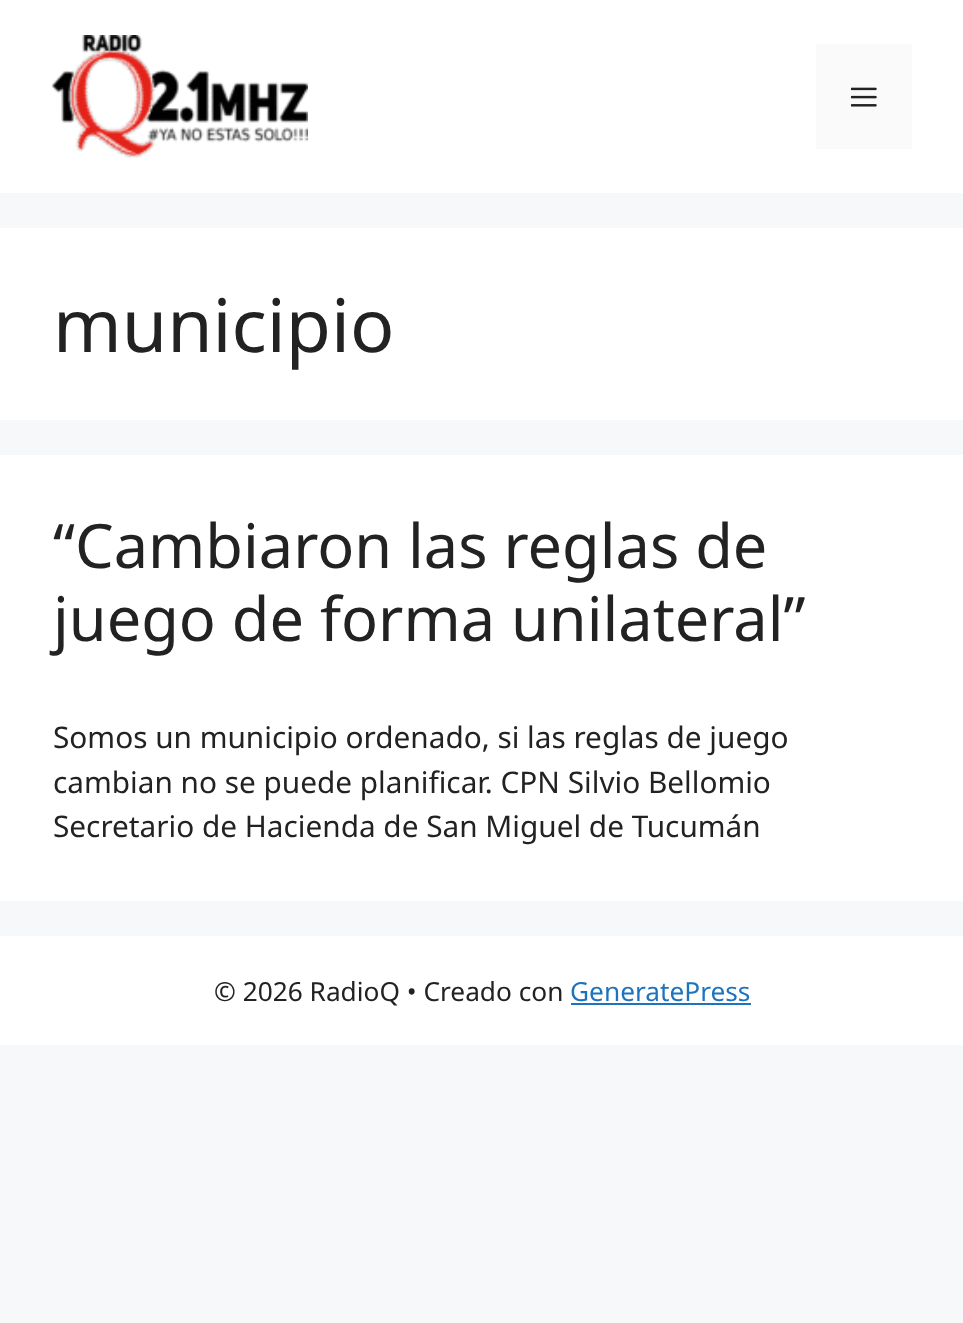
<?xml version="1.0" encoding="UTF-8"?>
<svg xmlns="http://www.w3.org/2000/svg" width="963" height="1323">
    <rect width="100%" height="100%" fill="#F7F8F9"/>
    <rect x="0" y="0" width="963" height="193" fill="#FFFFFF"/>
    <image x="52" y="35" width="256" height="123" href="img_01.png"/>
    <rect x="816" y="44" width="96" height="105" fill="#FAFAFA"/>
    <image x="851" y="87" width="26" height="20" href="img_02.png"/>
    <rect x="0" y="228" width="963" height="192" fill="#FFFFFF"/>
    <text x="53" y="352" font-family="Noto Sans" font-size="73.5" fill="#222222">municipio</text>
    <rect x="0" y="455" width="963" height="446" fill="#FFFFFF"/>
    <text font-family="Noto Sans" font-size="61.25" fill="#222222">
        <tspan x="53" y="568">“Cambiaron las reglas de</tspan>
        <tspan x="53" y="641">juego de forma unilateral”</tspan>
    </text>
    <text font-family="Noto Sans" font-size="29.75" fill="#222222">
        <tspan x="53" y="748">Somos un municipio ordenado, si las reglas de juego</tspan>
        <tspan x="53" y="793">cambian no se puede planificar. CPN Silvio Bellomio</tspan>
        <tspan x="53" y="837">Secretario de Hacienda de San Miguel de Tucumán</tspan>
    </text>
    <rect x="0" y="936" width="963" height="109" fill="#FFFFFF"/>
    <text x="214" y="1001" font-family="Noto Sans" font-size="26.25" fill="#222222">© 2026 RadioQ • Creado con</text>
    <text x="570" y="1001" font-family="Noto Sans" font-size="26.25" fill="#1E73BE">GeneratePress</text>
    <rect x="571" y="1003" width="180" height="2" fill="#1E73BE"/>
</svg>
